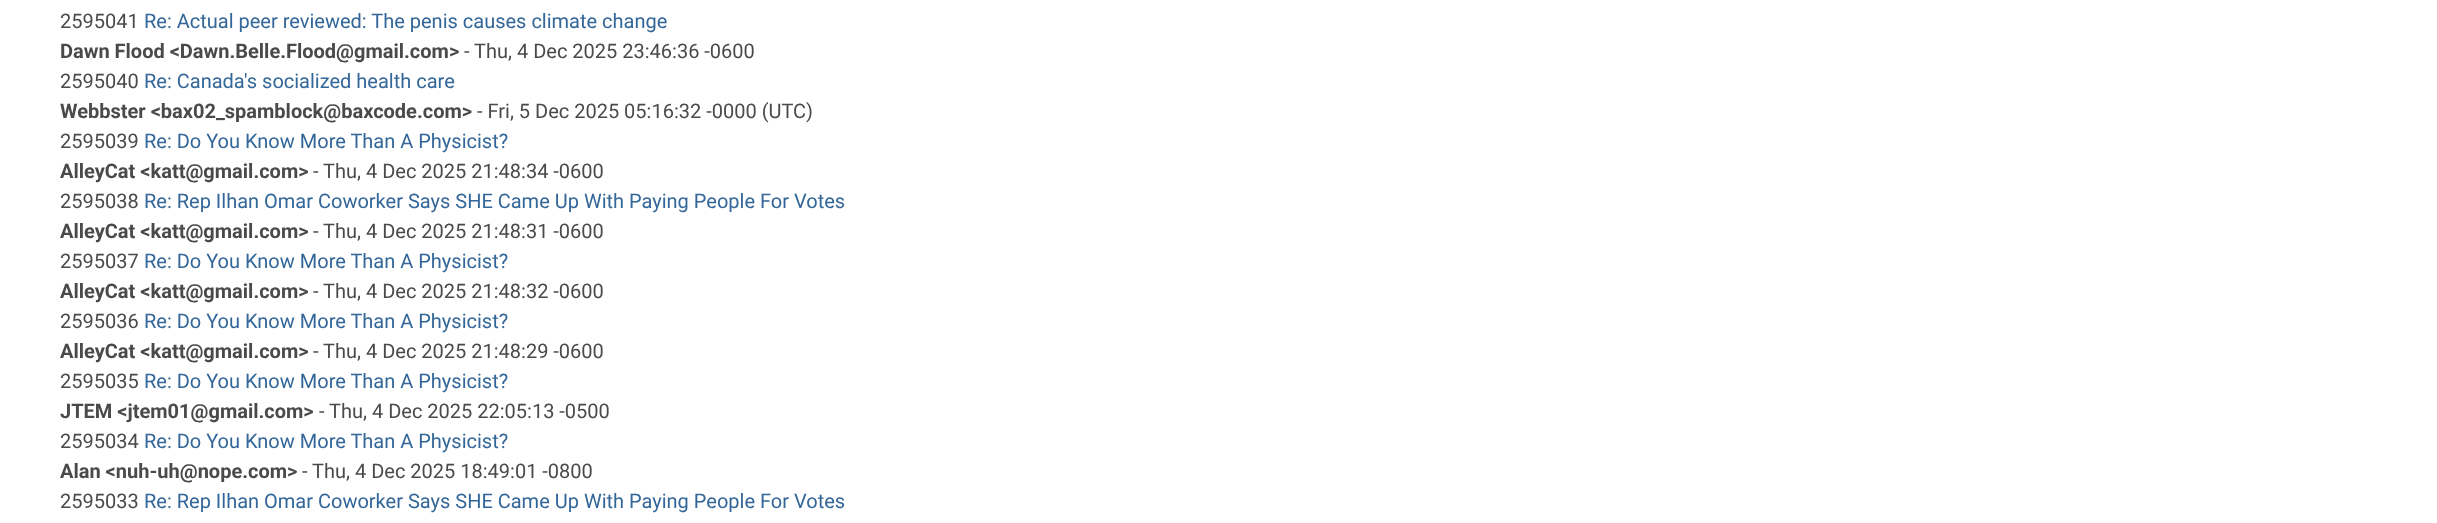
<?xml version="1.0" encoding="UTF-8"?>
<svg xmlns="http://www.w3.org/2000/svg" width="2437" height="523">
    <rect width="100%" height="100%" fill="#FFFFFF"/>
    <text x="60" y="28" font-family="Roboto" font-size="20" fill="#4A4A4A">2595041</text>
    <text x="144" y="28" font-family="Roboto" font-size="20" fill="#336699">Re: Actual peer reviewed: The penis causes climate change</text>
    <text x="60" y="58" font-family="Roboto" font-size="20" font-weight="700" fill="#4A4A4A">Dawn Flood &lt;Dawn.Belle.Flood@gmail.com&gt;</text>
    <text x="464" y="58" font-family="Roboto" font-size="20" fill="#4A4A4A">- Thu, 4 Dec 2025 23:46:36 -0600</text>
    <text x="60" y="88" font-family="Roboto" font-size="20" fill="#4A4A4A">2595040</text>
    <text x="144" y="88" font-family="Roboto" font-size="20" fill="#336699">Re: Canada's socialized health care</text>
    <text x="60" y="118" font-family="Roboto" font-size="20" font-weight="700" fill="#4A4A4A">Webbster &lt;bax02_spamblock@baxcode.com&gt;</text>
    <text x="477" y="118" font-family="Roboto" font-size="20" fill="#4A4A4A">- Fri, 5 Dec 2025 05:16:32 -0000 (UTC)</text>
    <text x="60" y="148" font-family="Roboto" font-size="20" fill="#4A4A4A">2595039</text>
    <text x="144" y="148" font-family="Roboto" font-size="20" fill="#336699">Re: Do You Know More Than A Physicist?</text>
    <text x="60" y="178" font-family="Roboto" font-size="20" font-weight="700" fill="#4A4A4A">AlleyCat &lt;katt@gmail.com&gt;</text>
    <text x="313" y="178" font-family="Roboto" font-size="20" fill="#4A4A4A">- Thu, 4 Dec 2025 21:48:34 -0600</text>
    <text x="60" y="208" font-family="Roboto" font-size="20" fill="#4A4A4A">2595038</text>
    <text x="144" y="208" font-family="Roboto" font-size="20" fill="#336699">Re: Rep Ilhan Omar Coworker Says SHE Came Up With Paying People For Votes</text>
    <text x="60" y="238" font-family="Roboto" font-size="20" font-weight="700" fill="#4A4A4A">AlleyCat &lt;katt@gmail.com&gt;</text>
    <text x="313" y="238" font-family="Roboto" font-size="20" fill="#4A4A4A">- Thu, 4 Dec 2025 21:48:31 -0600</text>
    <text x="60" y="268" font-family="Roboto" font-size="20" fill="#4A4A4A">2595037</text>
    <text x="144" y="268" font-family="Roboto" font-size="20" fill="#336699">Re: Do You Know More Than A Physicist?</text>
    <text x="60" y="298" font-family="Roboto" font-size="20" font-weight="700" fill="#4A4A4A">AlleyCat &lt;katt@gmail.com&gt;</text>
    <text x="313" y="298" font-family="Roboto" font-size="20" fill="#4A4A4A">- Thu, 4 Dec 2025 21:48:32 -0600</text>
    <text x="60" y="328" font-family="Roboto" font-size="20" fill="#4A4A4A">2595036</text>
    <text x="144" y="328" font-family="Roboto" font-size="20" fill="#336699">Re: Do You Know More Than A Physicist?</text>
    <text x="60" y="358" font-family="Roboto" font-size="20" font-weight="700" fill="#4A4A4A">AlleyCat &lt;katt@gmail.com&gt;</text>
    <text x="313" y="358" font-family="Roboto" font-size="20" fill="#4A4A4A">- Thu, 4 Dec 2025 21:48:29 -0600</text>
    <text x="60" y="388" font-family="Roboto" font-size="20" fill="#4A4A4A">2595035</text>
    <text x="144" y="388" font-family="Roboto" font-size="20" fill="#336699">Re: Do You Know More Than A Physicist?</text>
    <text x="60" y="418" font-family="Roboto" font-size="20" font-weight="700" fill="#4A4A4A">JTEM &lt;jtem01@gmail.com&gt;</text>
    <text x="319" y="418" font-family="Roboto" font-size="20" fill="#4A4A4A">- Thu, 4 Dec 2025 22:05:13 -0500</text>
    <text x="60" y="448" font-family="Roboto" font-size="20" fill="#4A4A4A">2595034</text>
    <text x="144" y="448" font-family="Roboto" font-size="20" fill="#336699">Re: Do You Know More Than A Physicist?</text>
    <text x="60" y="478" font-family="Roboto" font-size="20" font-weight="700" fill="#4A4A4A">Alan &lt;nuh-uh@nope.com&gt;</text>
    <text x="302" y="478" font-family="Roboto" font-size="20" fill="#4A4A4A">- Thu, 4 Dec 2025 18:49:01 -0800</text>
    <text x="60" y="508" font-family="Roboto" font-size="20" fill="#4A4A4A">2595033</text>
    <text x="144" y="508" font-family="Roboto" font-size="20" fill="#336699">Re: Rep Ilhan Omar Coworker Says SHE Came Up With Paying People For Votes</text>
</svg>
